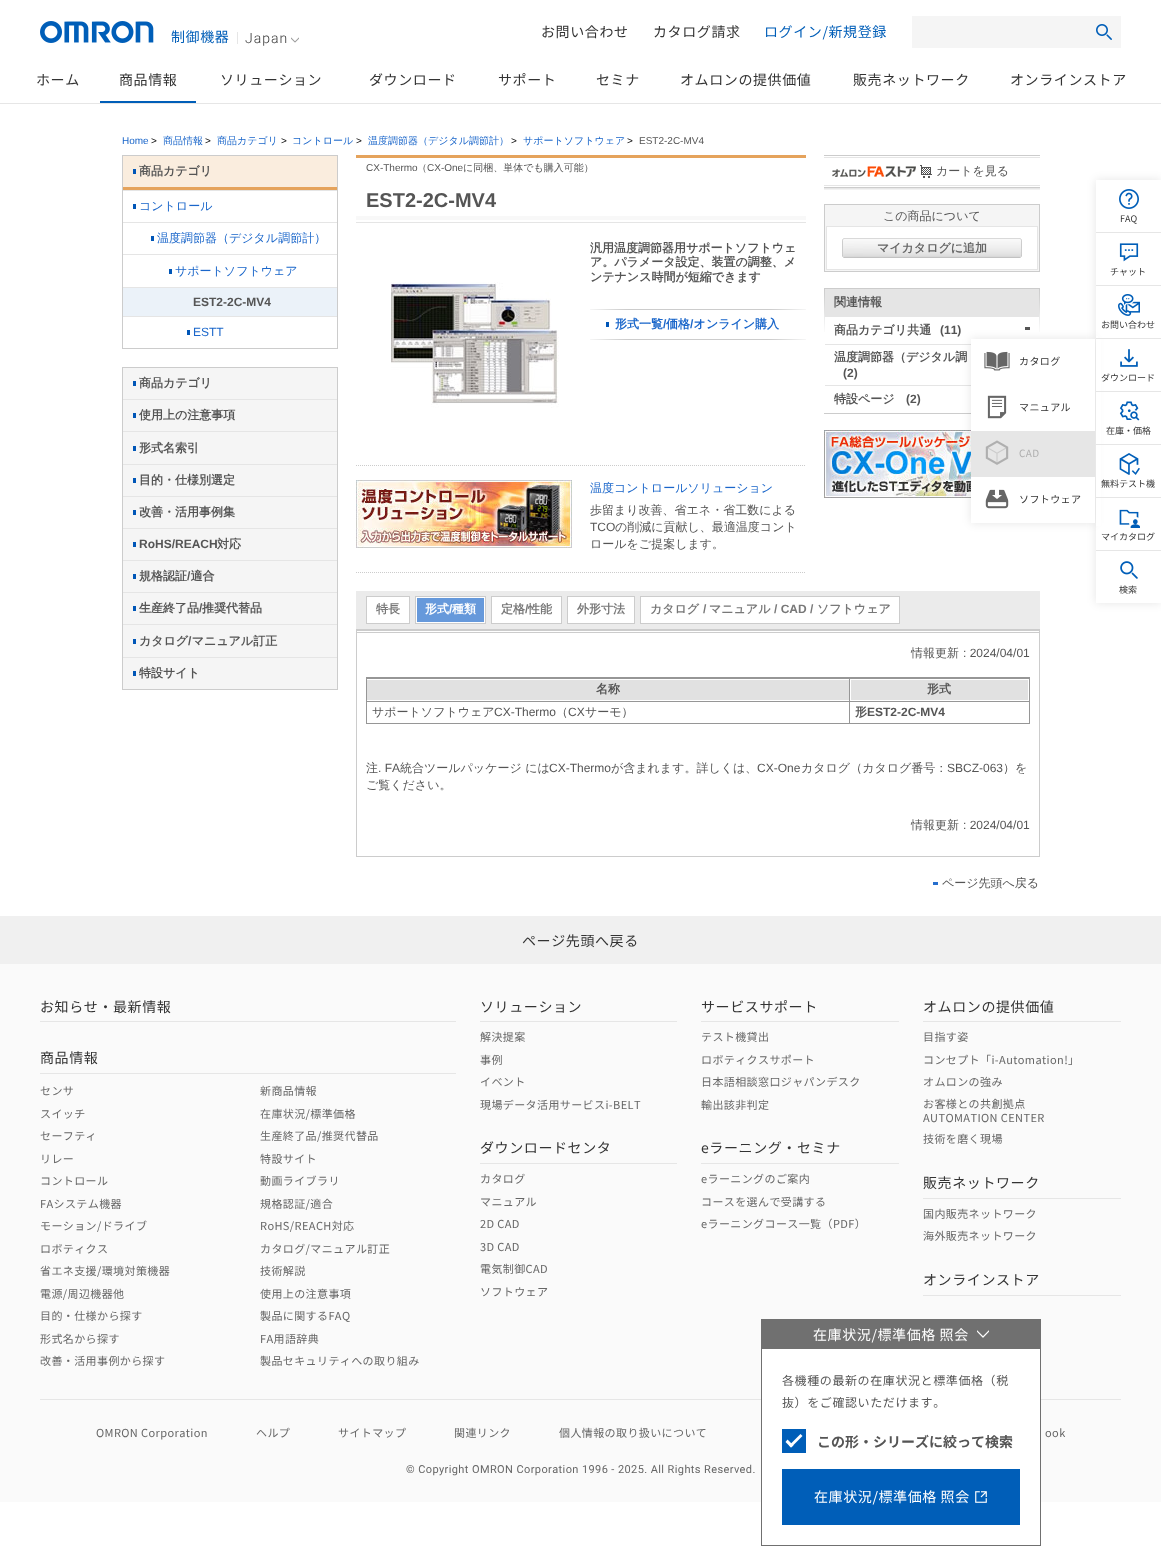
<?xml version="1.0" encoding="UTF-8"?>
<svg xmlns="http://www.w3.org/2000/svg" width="1161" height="1546">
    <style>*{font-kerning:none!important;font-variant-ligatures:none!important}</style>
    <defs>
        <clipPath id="clip1"><path d="M 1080 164 H 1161 V 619 H 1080 Z M 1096 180 H 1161 V 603 H 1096 Z" clip-rule="evenodd"/></clipPath>
        <filter id="blur1" x="-50%" y="-200%" width="200%" height="500%"><feGaussianBlur stdDeviation="5"/></filter>
        <clipPath id="clip2"><rect x="977" y="1328" width="12" height="12"/></clipPath>
    </defs>
    <rect width="100%" height="100%" fill="#FFFFFF"/>
    <rect x="0" y="103" width="1161" height="1" fill="#E6E6E6"/>
    <text x="541" y="37" font-family="Noto Sans JP" font-size="14" letter-spacing="0.6" fill="#333333">お問い合わせ</text>
    <text x="653" y="37" font-family="Noto Sans JP" font-size="14" letter-spacing="0.6" fill="#333333">カタログ請求</text>
    <text x="764" y="37" font-family="Noto Sans JP" font-size="14" letter-spacing="0.6" fill="#005EB8">ログイン/新規登録</text>
    <rect x="912" y="16" width="209" height="32" fill="#F5F5F5"/>
    <image x="1096" y="24" width="16" height="16" href="img_01.png"/>
    <text x="36" y="85" font-family="Noto Sans JP" font-size="14" letter-spacing="0.6" fill="#333333">ホーム</text>
    <text x="119" y="85" font-family="Noto Sans JP" font-size="14" letter-spacing="0.6" fill="#333333">商品情報</text>
    <rect x="100" y="101" width="96" height="2" fill="#005EB8"/>
    <text x="220" y="85" font-family="Noto Sans JP" font-size="14" letter-spacing="0.6" fill="#333333">ソリューション</text>
    <text x="369" y="85" font-family="Noto Sans JP" font-size="14" letter-spacing="0.6" fill="#333333">ダウンロード</text>
    <text x="498" y="85" font-family="Noto Sans JP" font-size="14" letter-spacing="0.6" fill="#333333">サポート</text>
    <text x="596" y="85" font-family="Noto Sans JP" font-size="14" letter-spacing="0.6" fill="#333333">セミナ</text>
    <text x="680" y="85" font-family="Noto Sans JP" font-size="14" letter-spacing="0.6" fill="#333333">オムロンの提供価値</text>
    <text x="853" y="85" font-family="Noto Sans JP" font-size="14" letter-spacing="0.6" fill="#333333">販売ネットワーク</text>
    <text x="1010" y="85" font-family="Noto Sans JP" font-size="14" letter-spacing="0.6" fill="#333333">オンラインストア</text>
    <image x="40" y="21" width="114" height="22" href="img_02.png"/>
    <text x="171" y="42" font-family="Noto Sans JP" font-size="14" letter-spacing="0.6" fill="#005EB8">制御機器</text>
    <rect x="237" y="32" width="1" height="12" fill="#E6E6E6"/>
    <text x="245" y="43" font-family="Roboto" font-size="14" font-weight="300" letter-spacing="1" fill="#333333">Japan</text>
    <image x="291" y="37" width="8" height="6" href="img_03.png"/>
    <text x="122" y="144" font-family="Liberation Sans" font-size="10" fill="#1A66CA">Home</text>
    <text x="151" y="144" font-family="Liberation Sans" font-size="10" fill="#000000">&gt;</text>
    <text x="163" y="144" font-family="WenQuanYi Zen Hei" font-size="10" font-weight="500" fill="#1A66CA">商品情報</text>
    <text x="205" y="144" font-family="Liberation Sans" font-size="10" fill="#000000">&gt;</text>
    <text x="217" y="144" font-family="WenQuanYi Zen Hei" font-size="10" font-weight="500" fill="#1A66CA">商品カテゴリ</text>
    <text x="281" y="144" font-family="Liberation Sans" font-size="10" fill="#000000">&gt;</text>
    <text x="292" y="144" font-family="WenQuanYi Zen Hei" font-size="10" font-weight="500" fill="#1A66CA">コントロール</text>
    <text x="356" y="144" font-family="Liberation Sans" font-size="10" fill="#000000">&gt;</text>
    <text x="368" y="144" font-family="WenQuanYi Zen Hei" font-size="10" font-weight="500" fill="#1A66CA">温度調節器（デジタル調節計）</text>
    <text x="511" y="144" font-family="Liberation Sans" font-size="10" fill="#000000">&gt;</text>
    <text x="523" y="144" font-family="WenQuanYi Zen Hei" font-size="10" font-weight="500" fill="#1A66CA">サポートソフトウェア</text>
    <text x="627" y="144" font-family="Liberation Sans" font-size="10" fill="#000000">&gt;</text>
    <text x="639" y="144" font-family="Liberation Sans" font-size="10" fill="#555555">EST2-2C-MV4</text>
    <rect x="122.5" y="155.5" width="215" height="193" fill="none" stroke="#CCCCCC"/>
    <rect x="123" y="156" width="214" height="31" fill="#FAEDDE"/>
    <rect x="123" y="187" width="214" height="3" fill="#E5A35C"/>
    <rect x="133" y="169" width="3" height="5" fill="#0056B7"/>
    <text x="139" y="175" font-family="WenQuanYi Zen Hei" font-size="12" font-weight="700" fill="#555555">商品カテゴリ</text>
    <rect x="123" y="190" width="214" height="1" fill="#E5E5E5"/>
    <rect x="133" y="204" width="3" height="5" fill="#0056B7"/>
    <text x="139" y="210" font-family="WenQuanYi Zen Hei" font-size="12" font-weight="500" fill="#1A66CA">コントロール</text>
    <rect x="123" y="222" width="214" height="1" fill="#E5E5E5"/>
    <rect x="151" y="236" width="3" height="5" fill="#0056B7"/>
    <text x="157" y="242" font-family="WenQuanYi Zen Hei" font-size="12" font-weight="500" fill="#1A66CA">温度調節器（デジタル調節計）</text>
    <rect x="123" y="254" width="214" height="1" fill="#E5E5E5"/>
    <rect x="169" y="269" width="3" height="5" fill="#0056B7"/>
    <text x="175" y="275" font-family="WenQuanYi Zen Hei" font-size="12" font-weight="500" fill="#1A66CA">サポートソフトウェア</text>
    <rect x="123" y="288" width="214" height="28" fill="#EBF2F9"/>
    <rect x="123" y="287" width="214" height="1" fill="#E5E5E5"/>
    <text x="193" y="306" font-family="Liberation Sans" font-size="12" font-weight="700" fill="#555555">EST2-2C-MV4</text>
    <rect x="123" y="316" width="214" height="1" fill="#E5E5E5"/>
    <rect x="187" y="330" width="3" height="5" fill="#0056B7"/>
    <text x="193" y="336" font-family="Liberation Sans" font-size="12" fill="#1A66CA">ESTT</text>
    <rect x="122.5" y="367.5" width="215" height="322" fill="#F5F5F5" stroke="#CCCCCC"/>
    <rect x="133" y="381" width="3" height="5" fill="#0056B7"/>
    <text x="139" y="387" font-family="WenQuanYi Zen Hei" font-size="12" font-weight="700" fill="#555555">商品カテゴリ</text>
    <rect x="123" y="399" width="214" height="1" fill="#E5E5E5"/>
    <rect x="133" y="413" width="3" height="5" fill="#0056B7"/>
    <text x="139" y="419" font-family="WenQuanYi Zen Hei" font-size="12" font-weight="700" fill="#555555">使用上の注意事項</text>
    <rect x="123" y="431" width="214" height="1" fill="#E5E5E5"/>
    <rect x="133" y="446" width="3" height="5" fill="#0056B7"/>
    <text x="139" y="452" font-family="WenQuanYi Zen Hei" font-size="12" font-weight="700" fill="#555555">形式名索引</text>
    <rect x="123" y="464" width="214" height="1" fill="#E5E5E5"/>
    <rect x="133" y="478" width="3" height="5" fill="#0056B7"/>
    <text x="139" y="484" font-family="WenQuanYi Zen Hei" font-size="12" font-weight="700" fill="#555555">目的・仕様別選定</text>
    <rect x="123" y="496" width="214" height="1" fill="#E5E5E5"/>
    <rect x="133" y="510" width="3" height="5" fill="#0056B7"/>
    <text x="139" y="516" font-family="WenQuanYi Zen Hei" font-size="12" font-weight="700" fill="#555555">改善・活用事例集</text>
    <rect x="123" y="528" width="214" height="1" fill="#E5E5E5"/>
    <rect x="133" y="542" width="3" height="5" fill="#0056B7"/>
    <text x="139" y="548" font-family="Liberation Sans" font-size="12" font-weight="700" fill="#555555">RoHS/REACH</text>
    <text x="217" y="548" font-family="WenQuanYi Zen Hei" font-size="12" font-weight="700" fill="#555555">対応</text>
    <rect x="123" y="560" width="214" height="1" fill="#E5E5E5"/>
    <text x="139" y="580" font-family="WenQuanYi Zen Hei" font-size="12" font-weight="700" fill="#555555">規格認証 適合</text>
    <rect x="133" y="574" width="3" height="5" fill="#0056B7"/>
    <text x="187" y="580" font-family="Liberation Sans" font-size="12" font-weight="700" fill="#555555">/</text>
    <rect x="123" y="592" width="214" height="1" fill="#E5E5E5"/>
    <rect x="133" y="606" width="3" height="5" fill="#0056B7"/>
    <text x="139" y="612" font-family="WenQuanYi Zen Hei" font-size="12" font-weight="700" fill="#555555">生産終了品</text>
    <text x="199" y="612" font-family="Liberation Sans" font-size="12" font-weight="700" fill="#555555">/</text>
    <text x="202" y="612" font-family="WenQuanYi Zen Hei" font-size="12" font-weight="700" fill="#555555">推奨代替品</text>
    <rect x="123" y="624" width="214" height="1" fill="#E5E5E5"/>
    <text x="139" y="645" font-family="WenQuanYi Zen Hei" font-size="12" font-weight="700" fill="#555555">カタログ マニュアル訂正</text>
    <rect x="133" y="639" width="3" height="5" fill="#0056B7"/>
    <text x="188" y="645" font-family="Liberation Sans" font-size="12" font-weight="700" fill="#555555">/</text>
    <rect x="123" y="657" width="214" height="1" fill="#E5E5E5"/>
    <rect x="133" y="671" width="3" height="5" fill="#0056B7"/>
    <text x="139" y="677" font-family="WenQuanYi Zen Hei" font-size="12" font-weight="700" fill="#555555">特設サイト</text>
    <rect x="356" y="216" width="450" height="4" fill="#F8F8F8"/>
    <rect x="356" y="155" width="450" height="3" fill="#E5A35C"/>
    <rect x="356" y="222" width="450" height="1" fill="#E5E5E5"/>
    <text x="366" y="171" font-family="Liberation Sans" font-size="10" fill="#555555">CX-Thermo</text>
    <text x="417" y="171" font-family="WenQuanYi Zen Hei" font-size="10" font-weight="500" fill="#555555">（</text>
    <text x="427" y="171" font-family="Liberation Sans" font-size="10" fill="#555555">CX-One</text>
    <text x="463" y="171" font-family="WenQuanYi Zen Hei" font-size="10" font-weight="500" fill="#555555">に同梱、単体でも購入可能）</text>
    <text x="366" y="207" font-family="Liberation Sans" font-size="20" font-weight="700" fill="#555555">EST2-2C-MV4</text>
    <image x="391" y="282" width="168" height="126" href="img_04.png"/>
    <text font-family="WenQuanYi Zen Hei" font-size="12" font-weight="700" fill="#555555">
        <tspan x="590" y="252">汎用温度調節器用サポートソフトウェ</tspan>
        <tspan x="590" y="266">ア。パラメータ設定、装置の調整、メ</tspan>
        <tspan x="590" y="281">ンテナンス時間が短縮できます</tspan>
    </text>
    <image x="590" y="309" width="216" height="1" href="img_05.png"/>
    <image x="590" y="339" width="216" height="1" href="img_05.png"/>
    <text x="615" y="328" font-family="WenQuanYi Zen Hei" font-size="12" font-weight="700" fill="#1A66CA">形式一覧</text>
    <text x="663" y="328" font-family="Liberation Sans" font-size="12" font-weight="700" fill="#1A66CA">/</text>
    <text x="666" y="328" font-family="WenQuanYi Zen Hei" font-size="12" font-weight="700" fill="#1A66CA">価格 オンライン購入</text>
    <rect x="606" y="322" width="3" height="5" fill="#0056B7"/>
    <text x="690" y="328" font-family="Liberation Sans" font-size="12" font-weight="700" fill="#1A66CA">/</text>
    <image x="356" y="572" width="449" height="1" href="img_06.png"/>
    <image x="356" y="465" width="449" height="1" href="img_06.png"/>
    <image x="356" y="480" width="216" height="68" href="img_07.png"/>
    <text x="590" y="492" font-family="WenQuanYi Zen Hei" font-size="12" font-weight="500" fill="#1A66CA">温度コントロールソリューション</text>
    <text x="590" y="514" font-family="WenQuanYi Zen Hei" font-size="12" font-weight="500" fill="#555555">歩留まり改善、省エネ・省工数による</text>
    <text x="590" y="531" font-family="Liberation Sans" font-size="12" fill="#555555">TCO</text>
    <text x="615" y="531" font-family="WenQuanYi Zen Hei" font-size="12" font-weight="500" fill="#555555">の削減に貢献し、最適温度コント</text>
    <text x="590" y="548" font-family="WenQuanYi Zen Hei" font-size="12" font-weight="500" fill="#555555">ロールをご提案します。</text>
    <image x="824" y="188" width="216" height="2" href="img_08.png"/>
    <rect x="824" y="155" width="216" height="1" fill="#CCCCCC"/>
    <rect x="824" y="187" width="216" height="1" fill="#CCCCCC"/>
    <rect x="824" y="157" width="216" height="1" fill="#E5E5E5"/>
    <rect x="824" y="185" width="216" height="1" fill="#E5E5E5"/>
    <image x="832" y="165" width="100" height="13" href="img_09.png"/>
    <text x="936" y="175" font-family="WenQuanYi Zen Hei" font-size="12" font-weight="500" fill="#555555">カートを見る</text>
    <rect x="824.5" y="204.5" width="215" height="67" fill="#F5F5F5" stroke="#CCCCCC"/>
    <text x="883" y="220" font-family="WenQuanYi Zen Hei" font-size="12" font-weight="500" fill="#555555">この商品について</text>
    <rect x="826.5" y="226.5" width="211" height="43" fill="#FFFFFF" stroke="#E5E5E5"/>
    <image x="842" y="238" width="180" height="20" href="img_10.png"/>
    <text x="877" y="252" font-family="WenQuanYi Zen Hei" font-size="12" font-weight="700" fill="#666666">マイカタログに追加</text>
    <image x="824" y="289" width="216" height="43" href="img_11.png"/>
    <rect x="824" y="288" width="216" height="1" fill="#CCCCCC"/>
    <rect x="824" y="413" width="147" height="1" fill="#CCCCCC"/>
    <rect x="825" y="289" width="214" height="28" fill="#E5E5E5"/>
    <text x="834" y="306" font-family="WenQuanYi Zen Hei" font-size="12" font-weight="700" fill="#555555">関連情報</text>
    <rect x="825" y="317" width="214" height="15" fill="#FFFFFF"/>
    <rect x="1025" y="327" width="5" height="3" fill="#555555"/>
    <text x="834" y="334" font-family="WenQuanYi Zen Hei" font-size="12" font-weight="700" fill="#555555">商品カテゴリ共通</text>
    <text x="940" y="334" font-family="Liberation Sans" font-size="12" font-weight="700" fill="#555555">(11)</text>
    <rect x="825" y="344" width="146" height="1" fill="#E5E5E5"/>
    <text x="834" y="361" font-family="WenQuanYi Zen Hei" font-size="12" font-weight="700" fill="#555555">温度調節器（デジタル調</text>
    <text x="843" y="377" font-family="Liberation Sans" font-size="12" font-weight="700" fill="#555555">(2)</text>
    <rect x="825" y="385" width="146" height="1" fill="#E5E5E5"/>
    <text x="834" y="403" font-family="WenQuanYi Zen Hei" font-size="12" font-weight="700" fill="#555555">特設ページ</text>
    <text x="906" y="403" font-family="Liberation Sans" font-size="12" font-weight="700" fill="#555555">(2)</text>
    <image x="824" y="430" width="147" height="68" href="img_12.png"/>
    <rect x="356" y="629" width="684" height="228" fill="#CCCCCC"/>
    <rect x="356" y="591" width="684" height="38" fill="#EBEBEB"/>
    <rect x="366.5" y="596.5" width="43" height="27" fill="none" stroke="#CCCCCC"/>
    <rect x="367" y="597" width="42" height="26" fill="#FFFFFF"/>
    <text x="376" y="613" font-family="WenQuanYi Zen Hei" font-size="12" font-weight="700" fill="#787878">特長</text>
    <rect x="415.5" y="596.5" width="70" height="27" fill="none" stroke="#CCCCCC"/>
    <rect x="416.5" y="597.5" width="68" height="25" fill="#6699DB" stroke="#FFFFFF"/>
    <text x="425" y="613" font-family="WenQuanYi Zen Hei" font-size="12" font-weight="700" fill="#FFFFFF">形式</text>
    <text x="449" y="613" font-family="Liberation Sans" font-size="12" font-weight="700" fill="#FFFFFF">/</text>
    <text x="452" y="613" font-family="WenQuanYi Zen Hei" font-size="12" font-weight="700" fill="#FFFFFF">種類</text>
    <rect x="491.5" y="596.5" width="70" height="27" fill="none" stroke="#CCCCCC"/>
    <rect x="492" y="597" width="69" height="26" fill="#FFFFFF"/>
    <text x="501" y="613" font-family="WenQuanYi Zen Hei" font-size="12" font-weight="700" fill="#787878">定格</text>
    <text x="525" y="613" font-family="Liberation Sans" font-size="12" font-weight="700" fill="#787878">/</text>
    <text x="528" y="613" font-family="WenQuanYi Zen Hei" font-size="12" font-weight="700" fill="#787878">性能</text>
    <rect x="567.5" y="596.5" width="67" height="27" fill="none" stroke="#CCCCCC"/>
    <rect x="568" y="597" width="66" height="26" fill="#FFFFFF"/>
    <text x="577" y="613" font-family="WenQuanYi Zen Hei" font-size="12" font-weight="700" fill="#787878">外形寸法</text>
    <rect x="640.5" y="596.5" width="259" height="27" fill="none" stroke="#CCCCCC"/>
    <rect x="641" y="597" width="258" height="26" fill="#FFFFFF"/>
    <text x="650" y="613" font-family="WenQuanYi Zen Hei" font-size="12" font-weight="700" fill="#787878">カタログ</text>
    <text x="703" y="613" font-family="Liberation Sans" font-size="12" font-weight="700" fill="#787878">/</text>
    <text x="709" y="613" font-family="WenQuanYi Zen Hei" font-size="12" font-weight="700" fill="#787878">マニュアル</text>
    <text x="774" y="613" font-family="Liberation Sans" font-size="12" font-weight="700" fill="#787878">/ CAD /</text>
    <text x="817" y="613" font-family="WenQuanYi Zen Hei" font-size="12" font-weight="700" fill="#787878">ソフトウェア</text>
    <rect x="357" y="631" width="682" height="225" fill="#FFFFFF"/>
    <rect x="357" y="632" width="682" height="1" fill="#CCCCCC"/>
    <text x="911" y="657" font-family="WenQuanYi Zen Hei" font-size="12" font-weight="500" fill="#555555">情報更新</text>
    <text x="963" y="657" font-family="Liberation Sans" font-size="12" fill="#555555">: 2024/04/01</text>
    <rect x="1029" y="677" width="1" height="47" fill="#969696"/>
    <rect x="366" y="723" width="664" height="1" fill="#969696"/>
    <rect x="366" y="677" width="1" height="47" fill="#969696"/>
    <rect x="367" y="680" width="482" height="20" fill="#E1E1E1"/>
    <text x="596" y="693" font-family="WenQuanYi Zen Hei" font-size="12" font-weight="700" fill="#555555">名称</text>
    <rect x="851" y="680" width="177" height="20" fill="#E1E1E1"/>
    <rect x="849" y="701" width="181" height="1" fill="#969696"/>
    <rect x="849" y="701" width="1" height="23" fill="#969696"/>
    <rect x="366" y="701" width="484" height="1" fill="#969696"/>
    <rect x="849" y="677" width="1" height="25" fill="#969696"/>
    <rect x="366" y="677" width="664" height="2" fill="#969696"/>
    <text x="927" y="693" font-family="WenQuanYi Zen Hei" font-size="12" font-weight="700" fill="#555555">形式</text>
    <text x="372" y="716" font-family="WenQuanYi Zen Hei" font-size="12" font-weight="500" fill="#555555">サポートソフトウェア</text>
    <text x="494" y="716" font-family="Liberation Sans" font-size="12" fill="#555555">CX-Thermo</text>
    <text x="556" y="716" font-family="WenQuanYi Zen Hei" font-size="12" font-weight="500" fill="#555555">（</text>
    <text x="568" y="716" font-family="Liberation Sans" font-size="12" fill="#555555">CX</text>
    <text x="585" y="716" font-family="WenQuanYi Zen Hei" font-size="12" font-weight="500" fill="#555555">サーモ）</text>
    <text x="855" y="716" font-family="WenQuanYi Zen Hei" font-size="12" font-weight="700" fill="#555555">形</text>
    <text x="867" y="716" font-family="Liberation Sans" font-size="12" font-weight="700" fill="#555555">EST2-2C-MV4</text>
    <text x="366" y="772" font-family="WenQuanYi Zen Hei" font-size="12" font-weight="500" fill="#555555">注</text>
    <text x="378" y="772" font-family="Liberation Sans" font-size="12" fill="#555555">. FA</text>
    <text x="400" y="772" font-family="WenQuanYi Zen Hei" font-size="12" font-weight="500" fill="#555555">統合ツールパッケージ には</text>
    <text x="549" y="772" font-family="Liberation Sans" font-size="12" fill="#555555">CX-Thermo</text>
    <text x="611" y="772" font-family="WenQuanYi Zen Hei" font-size="12" font-weight="500" fill="#555555">が含まれます。詳しくは、</text>
    <text x="757" y="772" font-family="Liberation Sans" font-size="12" fill="#555555">CX-One</text>
    <text x="801" y="772" font-family="WenQuanYi Zen Hei" font-size="12" font-weight="500" fill="#555555">カタログ（カタログ番号：</text>
    <text x="947" y="772" font-family="Liberation Sans" font-size="12" fill="#555555">SBCZ-063</text>
    <text x="1003" y="772" font-family="WenQuanYi Zen Hei" font-size="12" font-weight="500" fill="#555555">）を</text>
    <text x="366" y="789" font-family="WenQuanYi Zen Hei" font-size="12" font-weight="500" fill="#555555">ご覧ください。</text>
    <text x="911" y="829" font-family="WenQuanYi Zen Hei" font-size="12" font-weight="500" fill="#555555">情報更新</text>
    <text x="963" y="829" font-family="Liberation Sans" font-size="12" fill="#555555">: 2024/04/01</text>
    <text x="942" y="887" font-family="WenQuanYi Zen Hei" font-size="12" font-weight="500" fill="#555555">ページ先頭へ戻る</text>
    <rect x="933" y="882" width="5" height="3" fill="#266ECD"/>
    <rect x="0" y="964" width="1161" height="538" fill="#FAFAFA"/>
    <rect x="0" y="916" width="1161" height="48" fill="#F0F0F0"/>
    <text x="522" y="946" font-family="Noto Sans JP" font-size="14" letter-spacing="0.6" fill="#333333">ページ先頭へ戻る</text>
    <rect x="40" y="1399" width="1081" height="1" fill="#E6E6E6"/>
    <rect x="40" y="1021" width="416" height="1" fill="#E6E6E6"/>
    <text x="40" y="1012" font-family="Noto Sans JP" font-size="14" letter-spacing="0.6" fill="#333333">お知らせ・最新情報</text>
    <rect x="40" y="1073" width="416" height="1" fill="#E6E6E6"/>
    <text x="40" y="1063" font-family="Noto Sans JP" font-size="14" letter-spacing="0.6" fill="#333333">商品情報</text>
    <text x="40" y="1095" font-family="Noto Sans JP" font-size="11" letter-spacing="0.4" fill="#666666">センサ</text>
    <text x="40" y="1118" font-family="Noto Sans JP" font-size="11" letter-spacing="0.4" fill="#666666">スイッチ</text>
    <text x="40" y="1140" font-family="Noto Sans JP" font-size="11" letter-spacing="0.4" fill="#666666">セーフティ</text>
    <text x="40" y="1163" font-family="Noto Sans JP" font-size="11" letter-spacing="0.4" fill="#666666">リレー</text>
    <text x="40" y="1185" font-family="Noto Sans JP" font-size="11" letter-spacing="0.4" fill="#666666">コントロール</text>
    <text x="40" y="1208" font-family="Noto Sans JP" font-size="11" letter-spacing="0.4" fill="#666666">FAシステム機器</text>
    <text x="40" y="1230" font-family="Noto Sans JP" font-size="11" letter-spacing="0.4" fill="#666666">モーション/ドライブ</text>
    <text x="40" y="1253" font-family="Noto Sans JP" font-size="11" letter-spacing="0.4" fill="#666666">ロボティクス</text>
    <text x="40" y="1275" font-family="Noto Sans JP" font-size="11" letter-spacing="0.4" fill="#666666">省エネ支援/環境対策機器</text>
    <text x="40" y="1298" font-family="Noto Sans JP" font-size="11" letter-spacing="0.4" fill="#666666">電源/周辺機器他</text>
    <text x="40" y="1320" font-family="Noto Sans JP" font-size="11" letter-spacing="0.4" fill="#666666">目的・仕様から探す</text>
    <text x="40" y="1343" font-family="Noto Sans JP" font-size="11" letter-spacing="0.4" fill="#666666">形式名から探す</text>
    <text x="40" y="1365" font-family="Noto Sans JP" font-size="11" letter-spacing="0.4" fill="#666666">改善・活用事例から探す</text>
    <text x="260" y="1095" font-family="Noto Sans JP" font-size="11" letter-spacing="0.4" fill="#666666">新商品情報</text>
    <text x="260" y="1118" font-family="Noto Sans JP" font-size="11" letter-spacing="0.4" fill="#666666">在庫状況/標準価格</text>
    <text x="260" y="1140" font-family="Noto Sans JP" font-size="11" letter-spacing="0.4" fill="#666666">生産終了品/推奨代替品</text>
    <text x="260" y="1163" font-family="Noto Sans JP" font-size="11" letter-spacing="0.4" fill="#666666">特設サイト</text>
    <text x="260" y="1185" font-family="Noto Sans JP" font-size="11" letter-spacing="0.4" fill="#666666">動画ライブラリ</text>
    <text x="260" y="1208" font-family="Noto Sans JP" font-size="11" letter-spacing="0.4" fill="#666666">規格認証/適合</text>
    <text x="260" y="1230" font-family="Noto Sans JP" font-size="11" letter-spacing="0.4" fill="#666666">RoHS/REACH対応</text>
    <text x="260" y="1253" font-family="Noto Sans JP" font-size="11" letter-spacing="0.4" fill="#666666">カタログ/マニュアル訂正</text>
    <text x="260" y="1275" font-family="Noto Sans JP" font-size="11" letter-spacing="0.4" fill="#666666">技術解説</text>
    <text x="260" y="1298" font-family="Noto Sans JP" font-size="11" letter-spacing="0.4" fill="#666666">使用上の注意事項</text>
    <text x="260" y="1320" font-family="Noto Sans JP" font-size="11" letter-spacing="0.4" fill="#666666">製品に関するFAQ</text>
    <text x="260" y="1343" font-family="Noto Sans JP" font-size="11" letter-spacing="0.4" fill="#666666">FA用語辞典</text>
    <text x="260" y="1365" font-family="Noto Sans JP" font-size="11" letter-spacing="0.4" fill="#666666">製品セキュリティへの取り組み</text>
    <rect x="480" y="1021" width="197" height="1" fill="#E6E6E6"/>
    <text x="480" y="1012" font-family="Noto Sans JP" font-size="14" letter-spacing="0.6" fill="#333333">ソリューション</text>
    <text x="480" y="1041" font-family="Noto Sans JP" font-size="11" letter-spacing="0.4" fill="#666666">解決提案</text>
    <text x="480" y="1064" font-family="Noto Sans JP" font-size="11" letter-spacing="0.4" fill="#666666">事例</text>
    <text x="480" y="1086" font-family="Noto Sans JP" font-size="11" letter-spacing="0.4" fill="#666666">イベント</text>
    <text x="480" y="1109" font-family="Noto Sans JP" font-size="11" letter-spacing="0.4" fill="#666666">現場データ活用サービスi-BELT</text>
    <rect x="480" y="1163" width="197" height="1" fill="#E6E6E6"/>
    <text x="480" y="1153" font-family="Noto Sans JP" font-size="14" letter-spacing="0.6" fill="#333333">ダウンロードセンタ</text>
    <text x="480" y="1183" font-family="Noto Sans JP" font-size="11" letter-spacing="0.4" fill="#666666">カタログ</text>
    <text x="480" y="1206" font-family="Noto Sans JP" font-size="11" letter-spacing="0.4" fill="#666666">マニュアル</text>
    <text x="480" y="1228" font-family="Noto Sans JP" font-size="11" letter-spacing="0.4" fill="#666666">2D CAD</text>
    <text x="480" y="1251" font-family="Noto Sans JP" font-size="11" letter-spacing="0.4" fill="#666666">3D CAD</text>
    <text x="480" y="1273" font-family="Noto Sans JP" font-size="11" letter-spacing="0.4" fill="#666666">電気制御CAD</text>
    <text x="480" y="1296" font-family="Noto Sans JP" font-size="11" letter-spacing="0.4" fill="#666666">ソフトウェア</text>
    <rect x="701" y="1021" width="198" height="1" fill="#E6E6E6"/>
    <text x="701" y="1012" font-family="Noto Sans JP" font-size="14" letter-spacing="0.6" fill="#333333">サービスサポート</text>
    <text x="701" y="1041" font-family="Noto Sans JP" font-size="11" letter-spacing="0.4" fill="#666666">テスト機貸出</text>
    <text x="701" y="1064" font-family="Noto Sans JP" font-size="11" letter-spacing="0.4" fill="#666666">ロボティクスサポート</text>
    <text x="701" y="1086" font-family="Noto Sans JP" font-size="11" letter-spacing="0.4" fill="#666666">日本語相談窓口ジャパンデスク</text>
    <text x="701" y="1109" font-family="Noto Sans JP" font-size="11" letter-spacing="0.4" fill="#666666">輸出該非判定</text>
    <rect x="701" y="1163" width="198" height="1" fill="#E6E6E6"/>
    <text x="701" y="1153" font-family="Noto Sans JP" font-size="14" letter-spacing="0.6" fill="#333333">eラーニング・セミナ</text>
    <text x="701" y="1183" font-family="Noto Sans JP" font-size="11" letter-spacing="0.4" fill="#666666">eラーニングのご案内</text>
    <text x="701" y="1206" font-family="Noto Sans JP" font-size="11" letter-spacing="0.4" fill="#666666">コースを選んで受講する</text>
    <text x="701" y="1228" font-family="Noto Sans JP" font-size="11" letter-spacing="0.4" fill="#666666">eラーニングコース一覧（PDF）</text>
    <rect x="923" y="1021" width="198" height="1" fill="#E6E6E6"/>
    <text x="923" y="1012" font-family="Noto Sans JP" font-size="14" letter-spacing="0.6" fill="#333333">オムロンの提供価値</text>
    <text x="923" y="1041" font-family="Noto Sans JP" font-size="11" letter-spacing="0.4" fill="#666666">目指す姿</text>
    <text x="923" y="1064" font-family="Noto Sans JP" font-size="11" letter-spacing="0.4" fill="#666666">コンセプト「i-Automation!」</text>
    <text x="923" y="1086" font-family="Noto Sans JP" font-size="11" letter-spacing="0.4" fill="#666666">オムロンの強み</text>
    <text font-family="Noto Sans JP" font-size="11" letter-spacing="0.4" fill="#666666">
        <tspan x="923" y="1108">お客様との共創拠点</tspan>
        <tspan x="923" y="1122">AUTOMATION CENTER</tspan>
        <tspan x="923" y="1143">技術を磨く現場</tspan>
    </text>
    <rect x="923" y="1198" width="198" height="1" fill="#E6E6E6"/>
    <text x="923" y="1188" font-family="Noto Sans JP" font-size="14" letter-spacing="0.6" fill="#333333">販売ネットワーク</text>
    <text x="923" y="1218" font-family="Noto Sans JP" font-size="11" letter-spacing="0.4" fill="#666666">国内販売ネットワーク</text>
    <text x="923" y="1240" font-family="Noto Sans JP" font-size="11" letter-spacing="0.4" fill="#666666">海外販売ネットワーク</text>
    <rect x="923" y="1295" width="198" height="1" fill="#E6E6E6"/>
    <text x="923" y="1285" font-family="Noto Sans JP" font-size="14" letter-spacing="0.6" fill="#333333">オンラインストア</text>
    <text x="96" y="1437" font-family="Noto Sans JP" font-size="11" letter-spacing="0.4" fill="#666666">OMRON Corporation</text>
    <text x="256" y="1437" font-family="Noto Sans JP" font-size="11" letter-spacing="0.4" fill="#666666">ヘルプ</text>
    <text x="338" y="1437" font-family="Noto Sans JP" font-size="11" letter-spacing="0.4" fill="#666666">サイトマップ</text>
    <text x="454" y="1437" font-family="Noto Sans JP" font-size="11" letter-spacing="0.4" fill="#666666">関連リンク</text>
    <text x="559" y="1437" font-family="Noto Sans JP" font-size="11" letter-spacing="0.4" fill="#666666">個人情報の取り扱いについて</text>
    <text x="1045" y="1437" font-family="Noto Sans JP" font-size="11" letter-spacing="0.4" fill="#666666">ook</text>
    <text x="406" y="1473" font-family="Roboto" font-size="11" letter-spacing="0.4" fill="#666666">© Copyright OMRON Corporation 1996 - 2025. All Rights Reserved.</text>
    <g clip-path="url(#clip1)">
        <rect x="1096" y="180" width="65" height="423" fill="#000000" fill-opacity="0.1" filter="url(#blur1)"/>
    </g>
    <rect x="1096" y="232" width="65" height="1" fill="#E6E6E6"/>
    <image x="1119" y="189" width="20" height="20" href="img_13.png"/>
    <text x="1120" y="222" font-family="Noto Sans JP" font-size="9" fill="#333333">FAQ</text>
    <rect x="1096" y="285" width="65" height="1" fill="#E6E6E6"/>
    <image x="1119" y="243" width="20" height="19" href="img_14.png"/>
    <text x="1110" y="275" font-family="Noto Sans JP" font-size="9" fill="#333333">チャット</text>
    <rect x="971" y="339" width="124" height="184" fill="#000000" fill-opacity="0.1" filter="url(#blur1)"/>
    <rect x="1096" y="336" width="2" height="2" fill="#FFFFFF"/>
    <rect x="1096" y="338" width="65" height="1" fill="#E6E6E6"/>
    <image x="1118" y="294" width="22" height="22" href="img_15.png"/>
    <text x="1101" y="328" font-family="Noto Sans JP" font-size="9" fill="#333333">お問い合わせ</text>
    <rect x="971" y="339" width="124" height="184" fill="#FFFFFF"/>
    <image x="984" y="351" width="26" height="20" href="img_16.png"/>
    <text x="1019" y="365" font-family="Noto Sans JP" font-size="10" letter-spacing="0.4" fill="#333333">カタログ</text>
    <image x="987" y="395" width="20" height="24" href="img_17.png"/>
    <text x="1019" y="411" font-family="Noto Sans JP" font-size="10" letter-spacing="0.4" fill="#333333">マニュアル</text>
    <rect x="971" y="431" width="124" height="46" fill="#E6E6E6"/>
    <image x="985" y="440" width="24" height="25" href="img_18.png"/>
    <text x="1019" y="457" font-family="Noto Sans JP" font-size="10" letter-spacing="0.4" fill="#AFAFAF">CAD</text>
    <image x="985" y="489" width="24" height="20" href="img_19.png"/>
    <text x="1019" y="503" font-family="Noto Sans JP" font-size="10" letter-spacing="0.4" fill="#333333">ソフトウェア</text>
    <rect x="1096" y="339" width="5" height="52" fill="#FFFFFF"/>
    <rect x="1096" y="391" width="65" height="1" fill="#E6E6E6"/>
    <image x="1120" y="349" width="18" height="18" href="img_20.png"/>
    <text x="1101" y="381" font-family="Noto Sans JP" font-size="9" fill="#333333">ダウンロード</text>
    <rect x="1096" y="392" width="5" height="52" fill="#FFFFFF"/>
    <rect x="1096" y="444" width="65" height="1" fill="#E6E6E6"/>
    <image x="1119" y="401" width="21" height="20" href="img_21.png"/>
    <text x="1106" y="434" font-family="Noto Sans JP" font-size="9" fill="#333333">在庫・価格</text>
    <rect x="1096" y="445" width="5" height="52" fill="#FFFFFF"/>
    <rect x="1096" y="497" width="65" height="1" fill="#E6E6E6"/>
    <image x="1119" y="453" width="21" height="22" href="img_22.png"/>
    <text x="1101" y="487" font-family="Noto Sans JP" font-size="9" fill="#333333">無料テスト機</text>
    <rect x="1096" y="498" width="5" height="28" fill="#FFFFFF"/>
    <rect x="1096" y="550" width="65" height="1" fill="#E6E6E6"/>
    <image x="1119" y="509" width="21" height="19" href="img_23.png"/>
    <text x="1101" y="540" font-family="Noto Sans JP" font-size="9" fill="#333333">マイカタログ</text>
    <image x="1120" y="561" width="18" height="18" href="img_24.png"/>
    <text x="1119" y="593" font-family="Noto Sans JP" font-size="9" fill="#333333">検索</text>
    <rect x="762" y="1349" width="278" height="153" fill="#FFFFFF"/>
    <rect x="761" y="1319" width="280" height="30" fill="#707070"/>
    <text x="813" y="1340" font-family="Noto Sans JP" font-size="14" letter-spacing="0.6" fill="#FFFFFF">在庫状況/標準価格 照会</text>
    <g clip-path="url(#clip2)">
        <path d="M 989 1331 L 983 1337 L 977 1331" fill="none" stroke="#FFFFFF" stroke-width="1.2" stroke-linecap="round" stroke-linejoin="round"/>
    </g>
    <rect x="1040" y="1349" width="1" height="197" fill="#707070"/>
    <rect x="761" y="1545" width="280" height="1" fill="#707070"/>
    <rect x="761" y="1349" width="1" height="197" fill="#707070"/>
    <text font-family="Noto Sans JP" font-size="12" letter-spacing="0.6" fill="#555555">
        <tspan x="782" y="1385">各機種の最新の在庫状況と標準価格（税</tspan>
        <tspan x="782" y="1407">抜）をご確認いただけます。</tspan>
    </text>
    <rect x="782" y="1429" width="24" height="24" fill="#005EB8"/>
    <path d="M 789 1445.5 L 800.5 1434 L 802.5 1436 L 791 1447.5 Z" fill="#FFFFFF"/>
    <path d="M 785.5 1442 L 787.5 1439.5 L 793.5 1445.5 L 791 1447.5 Z" fill="#FFFFFF"/>
    <text x="817" y="1447" font-family="Noto Sans JP" font-size="14" font-weight="700" fill="#555555">この形・シリーズに絞って検索</text>
    <rect x="782" y="1469" width="238" height="56" fill="#005EB8"/>
    <text x="814" y="1502" font-family="Noto Sans JP" font-size="14" letter-spacing="0.6" fill="#FFFFFF">在庫状況/標準価格 照会</text>
    <image x="975" y="1491" width="12" height="12" href="img_25.png"/>
</svg>
